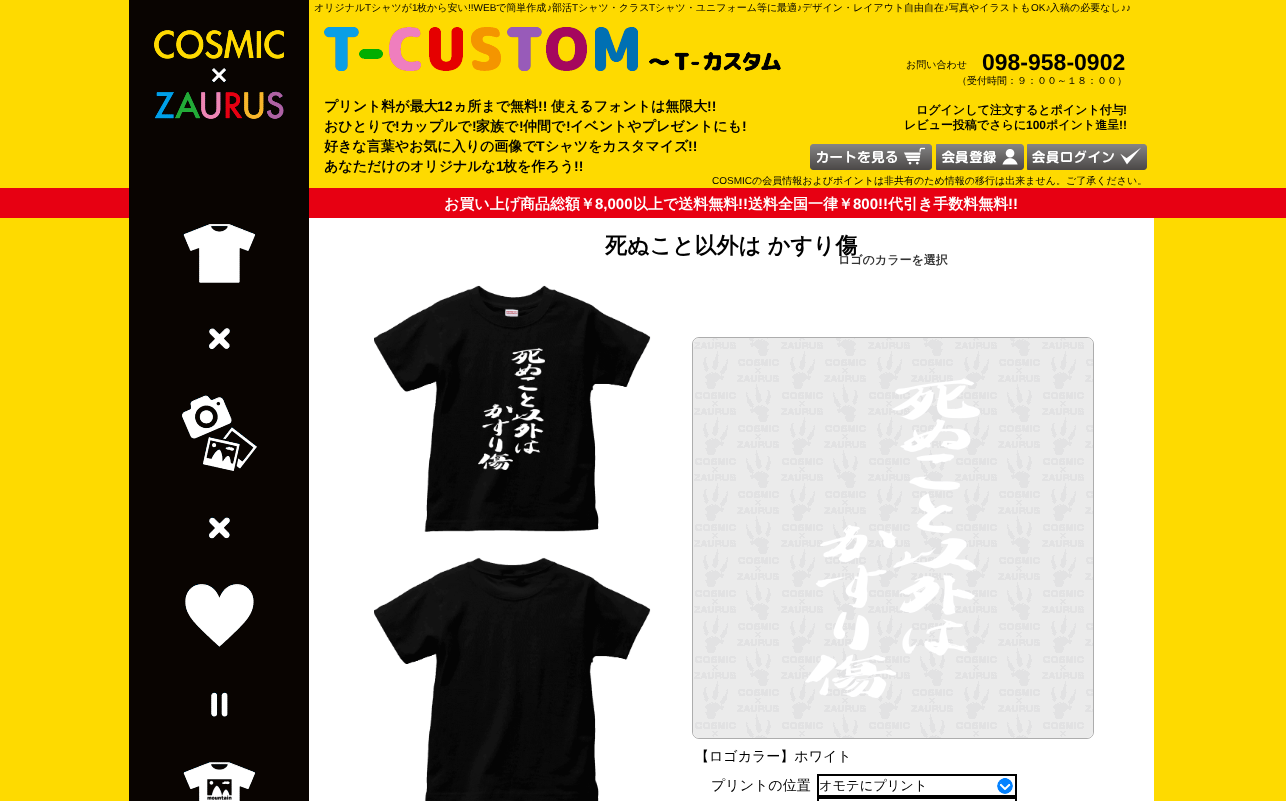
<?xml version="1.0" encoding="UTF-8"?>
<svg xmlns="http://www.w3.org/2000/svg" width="1286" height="801">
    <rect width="100%" height="100%" fill="#FEDA00"/>
    <image x="129" y="0" width="180" height="801" href="img_01.png"/>
    <text x="314" y="11" font-family="WenQuanYi Zen Hei" font-size="10" font-weight="500" fill="#000000">オリジナル</text>
    <text x="365" y="11" font-family="Liberation Sans" font-size="10" fill="#000000">T</text>
    <text x="371" y="11" font-family="WenQuanYi Zen Hei" font-size="10" font-weight="500" fill="#000000">シャツが</text>
    <text x="412" y="11" font-family="Liberation Sans" font-size="10" fill="#000000">1</text>
    <text x="417" y="11" font-family="WenQuanYi Zen Hei" font-size="10" font-weight="500" fill="#000000">枚から安い</text>
    <text x="468" y="11" font-family="Liberation Sans" font-size="10" fill="#000000">!!WEB</text>
    <text x="496" y="11" font-family="WenQuanYi Zen Hei" font-size="10" font-weight="500" fill="#000000">で簡単作成</text>
    <text x="547" y="11" font-family="Liberation Sans" font-size="10" fill="#000000">♪</text>
    <text x="552" y="11" font-family="WenQuanYi Zen Hei" font-size="10" font-weight="500" fill="#000000">部活</text>
    <text x="572" y="11" font-family="Liberation Sans" font-size="10" fill="#000000">T</text>
    <text x="578" y="11" font-family="WenQuanYi Zen Hei" font-size="10" font-weight="500" fill="#000000">シャツ・クラス</text>
    <text x="649" y="11" font-family="Liberation Sans" font-size="10" fill="#000000">T</text>
    <text x="655" y="11" font-family="WenQuanYi Zen Hei" font-size="10" font-weight="500" fill="#000000">シャツ・ユニフォーム等に最適</text>
    <text x="797" y="11" font-family="Liberation Sans" font-size="10" fill="#000000">♪</text>
    <text x="802" y="11" font-family="WenQuanYi Zen Hei" font-size="10" font-weight="500" fill="#000000">デザイン・レイアウト自由自在</text>
    <text x="944" y="11" font-family="Liberation Sans" font-size="10" fill="#000000">♪</text>
    <text x="949" y="11" font-family="WenQuanYi Zen Hei" font-size="10" font-weight="500" fill="#000000">写真やイラストも</text>
    <text x="1031" y="11" font-family="Liberation Sans" font-size="10" fill="#000000">OK♪</text>
    <text x="1050" y="11" font-family="WenQuanYi Zen Hei" font-size="10" font-weight="500" fill="#000000">入稿の必要なし</text>
    <text x="1121" y="11" font-family="Liberation Sans" font-size="10" fill="#000000">♪♪</text>
    <text x="906" y="68" font-family="WenQuanYi Zen Hei" font-size="10" font-weight="500" fill="#000000">お問い合わせ</text>
    <text x="982" y="70" font-family="Liberation Sans" font-size="23" font-weight="700" fill="#000000">098-958-0902</text>
    <image x="324" y="27" width="457" height="44" href="img_02.png"/>
    <text x="324" y="111" font-family="WenQuanYi Zen Hei" font-size="14" font-weight="700" fill="#000000">プリント料が最大</text>
    <text x="437" y="111" font-family="Liberation Sans" font-size="14" font-weight="700" fill="#000000">12</text>
    <text x="453" y="111" font-family="WenQuanYi Zen Hei" font-size="14" font-weight="700" fill="#000000">ヵ所まで無料</text>
    <text x="538" y="111" font-family="Liberation Sans" font-size="14" font-weight="700" fill="#000000">!!</text>
    <text x="551" y="111" font-family="WenQuanYi Zen Hei" font-size="14" font-weight="700" fill="#000000">使えるフォントは無限大</text>
    <text x="707" y="111" font-family="Liberation Sans" font-size="14" font-weight="700" fill="#000000">!!</text>
    <text x="324" y="131" font-family="WenQuanYi Zen Hei" font-size="14" font-weight="700" fill="#000000">おひとりで</text>
    <text x="395" y="131" font-family="Liberation Sans" font-size="14" font-weight="700" fill="#000000">!</text>
    <text x="400" y="131" font-family="WenQuanYi Zen Hei" font-size="14" font-weight="700" fill="#000000">カップルで</text>
    <text x="472" y="131" font-family="Liberation Sans" font-size="14" font-weight="700" fill="#000000">!</text>
    <text x="476" y="131" font-family="WenQuanYi Zen Hei" font-size="14" font-weight="700" fill="#000000">家族で</text>
    <text x="519" y="131" font-family="Liberation Sans" font-size="14" font-weight="700" fill="#000000">!</text>
    <text x="523" y="131" font-family="WenQuanYi Zen Hei" font-size="14" font-weight="700" fill="#000000">仲間で</text>
    <text x="566" y="131" font-family="Liberation Sans" font-size="14" font-weight="700" fill="#000000">!</text>
    <text x="570" y="131" font-family="WenQuanYi Zen Hei" font-size="14" font-weight="700" fill="#000000">イベントやプレゼントにも</text>
    <text x="742" y="131" font-family="Liberation Sans" font-size="14" font-weight="700" fill="#000000">!</text>
    <text x="324" y="151" font-family="WenQuanYi Zen Hei" font-size="14" font-weight="700" fill="#000000">好きな言葉やお気に入りの画像で</text>
    <text x="536" y="151" font-family="Liberation Sans" font-size="14" font-weight="700" fill="#000000">T</text>
    <text x="545" y="151" font-family="WenQuanYi Zen Hei" font-size="14" font-weight="700" fill="#000000">シャツをカスタマイズ</text>
    <text x="688" y="151" font-family="Liberation Sans" font-size="14" font-weight="700" fill="#000000">!!</text>
    <text x="324" y="171" font-family="WenQuanYi Zen Hei" font-size="14" font-weight="700" fill="#000000">あなただけのオリジナルな</text>
    <text x="496" y="171" font-family="Liberation Sans" font-size="14" font-weight="700" fill="#000000">1</text>
    <text x="503" y="171" font-family="WenQuanYi Zen Hei" font-size="14" font-weight="700" fill="#000000">枚を作ろう</text>
    <text x="574" y="171" font-family="Liberation Sans" font-size="14" font-weight="700" fill="#000000">!!</text>
    <text x="957" y="84" font-family="WenQuanYi Zen Hei" font-size="10" font-weight="500" fill="#000000">（受付時間：９：００～１８：００）</text>
    <text x="916" y="114" font-family="WenQuanYi Zen Hei" font-size="12" font-weight="700" fill="#000000">ログインして注文するとポイント付与</text>
    <text x="1123" y="114" font-family="Liberation Sans" font-size="12" font-weight="700" fill="#000000">!</text>
    <text x="904" y="129" font-family="WenQuanYi Zen Hei" font-size="12" font-weight="700" fill="#000000">レビュー投稿でさらに</text>
    <text x="1026" y="129" font-family="Liberation Sans" font-size="12" font-weight="700" fill="#000000">100</text>
    <text x="1046" y="129" font-family="WenQuanYi Zen Hei" font-size="12" font-weight="700" fill="#000000">ポイント進呈</text>
    <text x="1119" y="129" font-family="Liberation Sans" font-size="12" font-weight="700" fill="#000000">!!</text>
    <image x="810" y="144" width="122" height="26" href="img_03.png"/>
    <image x="936" y="144" width="88" height="26" href="img_04.png"/>
    <image x="1027" y="144" width="120" height="26" href="img_05.png"/>
    <text x="712" y="184" font-family="Liberation Sans" font-size="10" fill="#000000">COSMIC</text>
    <text x="752" y="184" font-family="WenQuanYi Zen Hei" font-size="10" font-weight="500" fill="#000000">の会員情報およびポイントは非共有のため情報の移行は出来ません。ご了承ください。</text>
    <rect x="0" y="188" width="129" height="30" fill="#E70012"/>
    <rect x="309" y="188" width="977" height="30" fill="#E70012"/>
    <text x="444" y="209" font-family="WenQuanYi Zen Hei" font-size="15" font-weight="700" fill="#FFFFFF">お買い上げ商品総額￥</text>
    <text x="595" y="209" font-family="Liberation Sans" font-size="15" font-weight="700" fill="#FFFFFF">8,000</text>
    <text x="633" y="209" font-family="WenQuanYi Zen Hei" font-size="15" font-weight="700" fill="#FFFFFF">以上で送料無料</text>
    <text x="738" y="209" font-family="Liberation Sans" font-size="15" font-weight="700" fill="#FFFFFF">!!</text>
    <text x="748" y="209" font-family="WenQuanYi Zen Hei" font-size="15" font-weight="700" fill="#FFFFFF">送料全国一律￥</text>
    <text x="853" y="209" font-family="Liberation Sans" font-size="15" font-weight="700" fill="#FFFFFF">800!!</text>
    <text x="888" y="209" font-family="WenQuanYi Zen Hei" font-size="15" font-weight="700" fill="#FFFFFF">代引き手数料無料</text>
    <text x="1008" y="209" font-family="Liberation Sans" font-size="15" font-weight="700" fill="#FFFFFF">!!</text>
    <rect x="309" y="218" width="845" height="583" fill="#FFFFFF"/>
    <text x="605" y="253" font-family="WenQuanYi Zen Hei" font-size="22" font-weight="700" fill="#000000">死ぬこと以外は かすり傷</text>
    <image x="374" y="285" width="277" height="247" href="img_06.png"/>
    <image x="478" y="348" width="67" height="122" href="img_07.png"/>
    <image x="374" y="557" width="277" height="244" href="img_08.png"/>
    <text x="838" y="264" font-family="WenQuanYi Zen Hei" font-size="12" font-weight="700" fill="#333333">ロゴのカラーを選択</text>
    <rect x="692.5" y="337.5" width="401" height="401" rx="6.5" fill="none" stroke="#ADADAD"/>
    <image x="693" y="338" width="400" height="400" href="img_09.png"/>
    <image x="805" y="378" width="175" height="320" href="img_10.png"/>
    <text x="695" y="761" font-family="WenQuanYi Zen Hei" font-size="14" font-weight="500" fill="#000000">【ロゴカラー】ホワイト</text>
    <text x="711" y="790" font-family="WenQuanYi Zen Hei" font-size="14" font-weight="500" fill="#000000">プリントの位置</text>
    <image x="997" y="778" width="16" height="16" href="img_11.png"/>
    <rect x="818" y="775" width="198" height="21" fill="none" stroke="#000000" stroke-width="2"/>
    <text x="819" y="790" font-family="WenQuanYi Zen Hei" font-size="13.25" font-weight="500" fill="#000000">オモテにプリント</text>
    <rect x="818" y="798" width="198" height="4" fill="none" stroke="#000000" stroke-width="2"/>
</svg>
